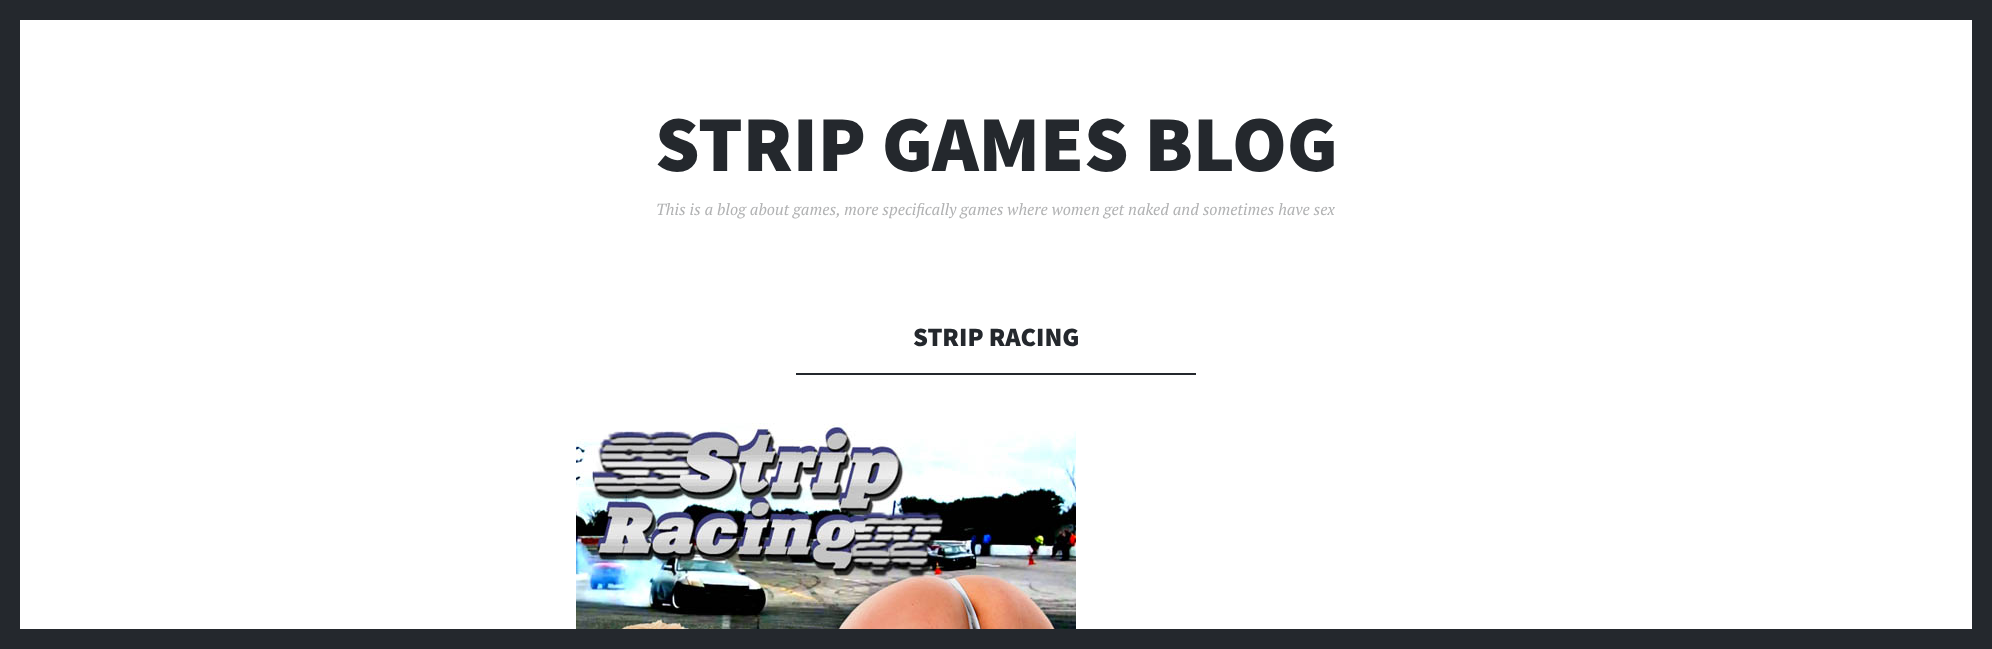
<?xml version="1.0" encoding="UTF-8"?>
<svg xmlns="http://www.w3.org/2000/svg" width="1992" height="649">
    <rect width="100%" height="100%" fill="#24282D"/>
    <rect x="20" y="20" width="1952" height="609" fill="#FFFFFF"/>
    <text x="655" y="171" font-family="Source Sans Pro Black" font-size="79.25" font-weight="900" fill="#24282D">STRIP GAMES BLOG</text>
    <text x="656" y="215" font-family="PT Serif" font-size="16.05" font-style="italic" fill="#B1B2B3">This is a blog about games, more specifically games where women get naked and sometimes have sex</text>
    <text x="913" y="346" font-family="Source Sans Pro Black" font-size="26.5" font-weight="900" fill="#24282D">STRIP RACING</text>
    <rect x="796" y="373" width="400" height="2" fill="#24282D"/>
    <image x="576" y="423" width="500" height="206" href="img_01.png"/>
</svg>
